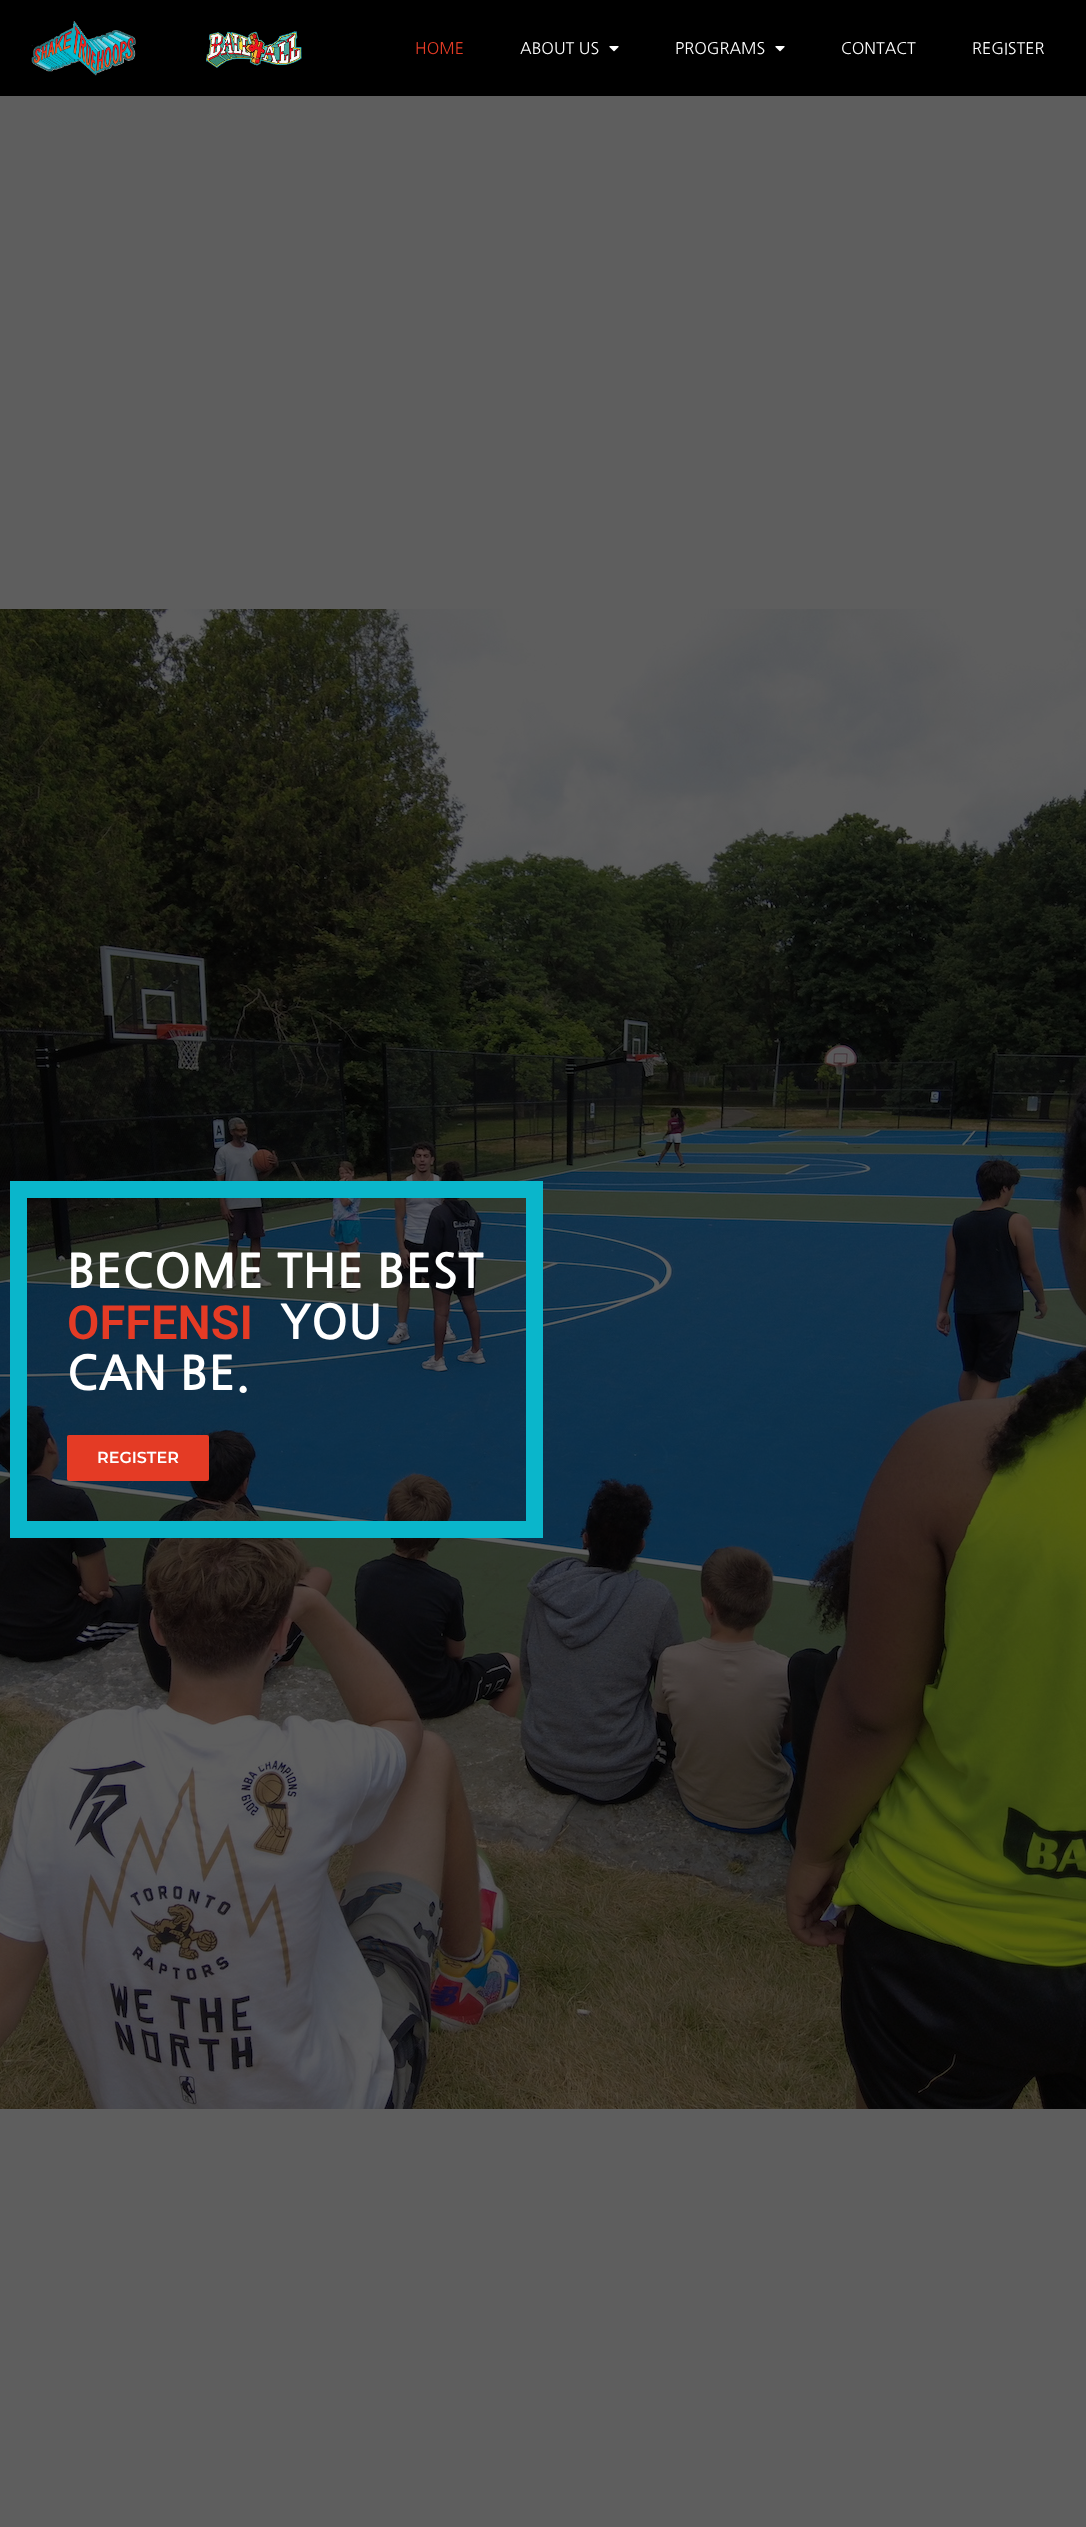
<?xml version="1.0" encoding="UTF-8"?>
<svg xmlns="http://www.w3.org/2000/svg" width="1086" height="2527">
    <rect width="100%" height="100%" fill="#5E5E5E"/>
    <rect x="0" y="0" width="1086" height="96" fill="#000000"/>
    <image x="31" y="20" width="105" height="56" href="img_01.png"/>
    <image x="206" y="31" width="96" height="37" href="img_02.png"/>
    <text x="415" y="54" font-family="NanumGothic" font-size="16" fill="#E43B25">HOME</text>
    <text x="520" y="54" font-family="NanumGothic" font-size="16" fill="#FFFFFF">ABOUT US</text>
    <image x="609" y="46" width="10" height="6" href="img_03.png"/>
    <text x="675" y="54" font-family="NanumGothic" font-size="16" fill="#FFFFFF">PROGRAMS</text>
    <image x="775" y="46" width="10" height="6" href="img_03.png"/>
    <text x="841" y="54" font-family="NanumGothic" font-size="16" fill="#FFFFFF">CONTACT</text>
    <text x="972" y="54" font-family="NanumGothic" font-size="16" fill="#FFFFFF">REGISTER</text>
    <image x="0" y="609" width="1086" height="1500" href="img_04.png"/>
    <path d="M 18.5 1189.5 H 534.5 V 1529.5 H 18.5 Z" fill="none" stroke="#0AB6CB" stroke-width="17"/>
    <text x="67" y="1288" font-family="NanumGothic" font-size="47" font-weight="700" fill="#FFFFFF">BECOME THE BEST</text>
    <text x="67" y="1339" font-family="Roboto" font-size="47" font-weight="600" fill="#E43B25">OFFENSI</text>
    <text x="280" y="1339" font-family="NanumGothic" font-size="47" font-weight="700" fill="#FFFFFF">YOU</text>
    <text x="67" y="1390" font-family="NanumGothic" font-size="47" font-weight="700" fill="#FFFFFF">CAN BE.</text>
    <rect x="67" y="1435" width="142" height="46" rx="2" fill="#E43B25"/>
    <text x="97" y="1463" font-family="Montserrat" font-size="16" font-weight="600" fill="#FFFFFF">REGISTER</text>
</svg>
